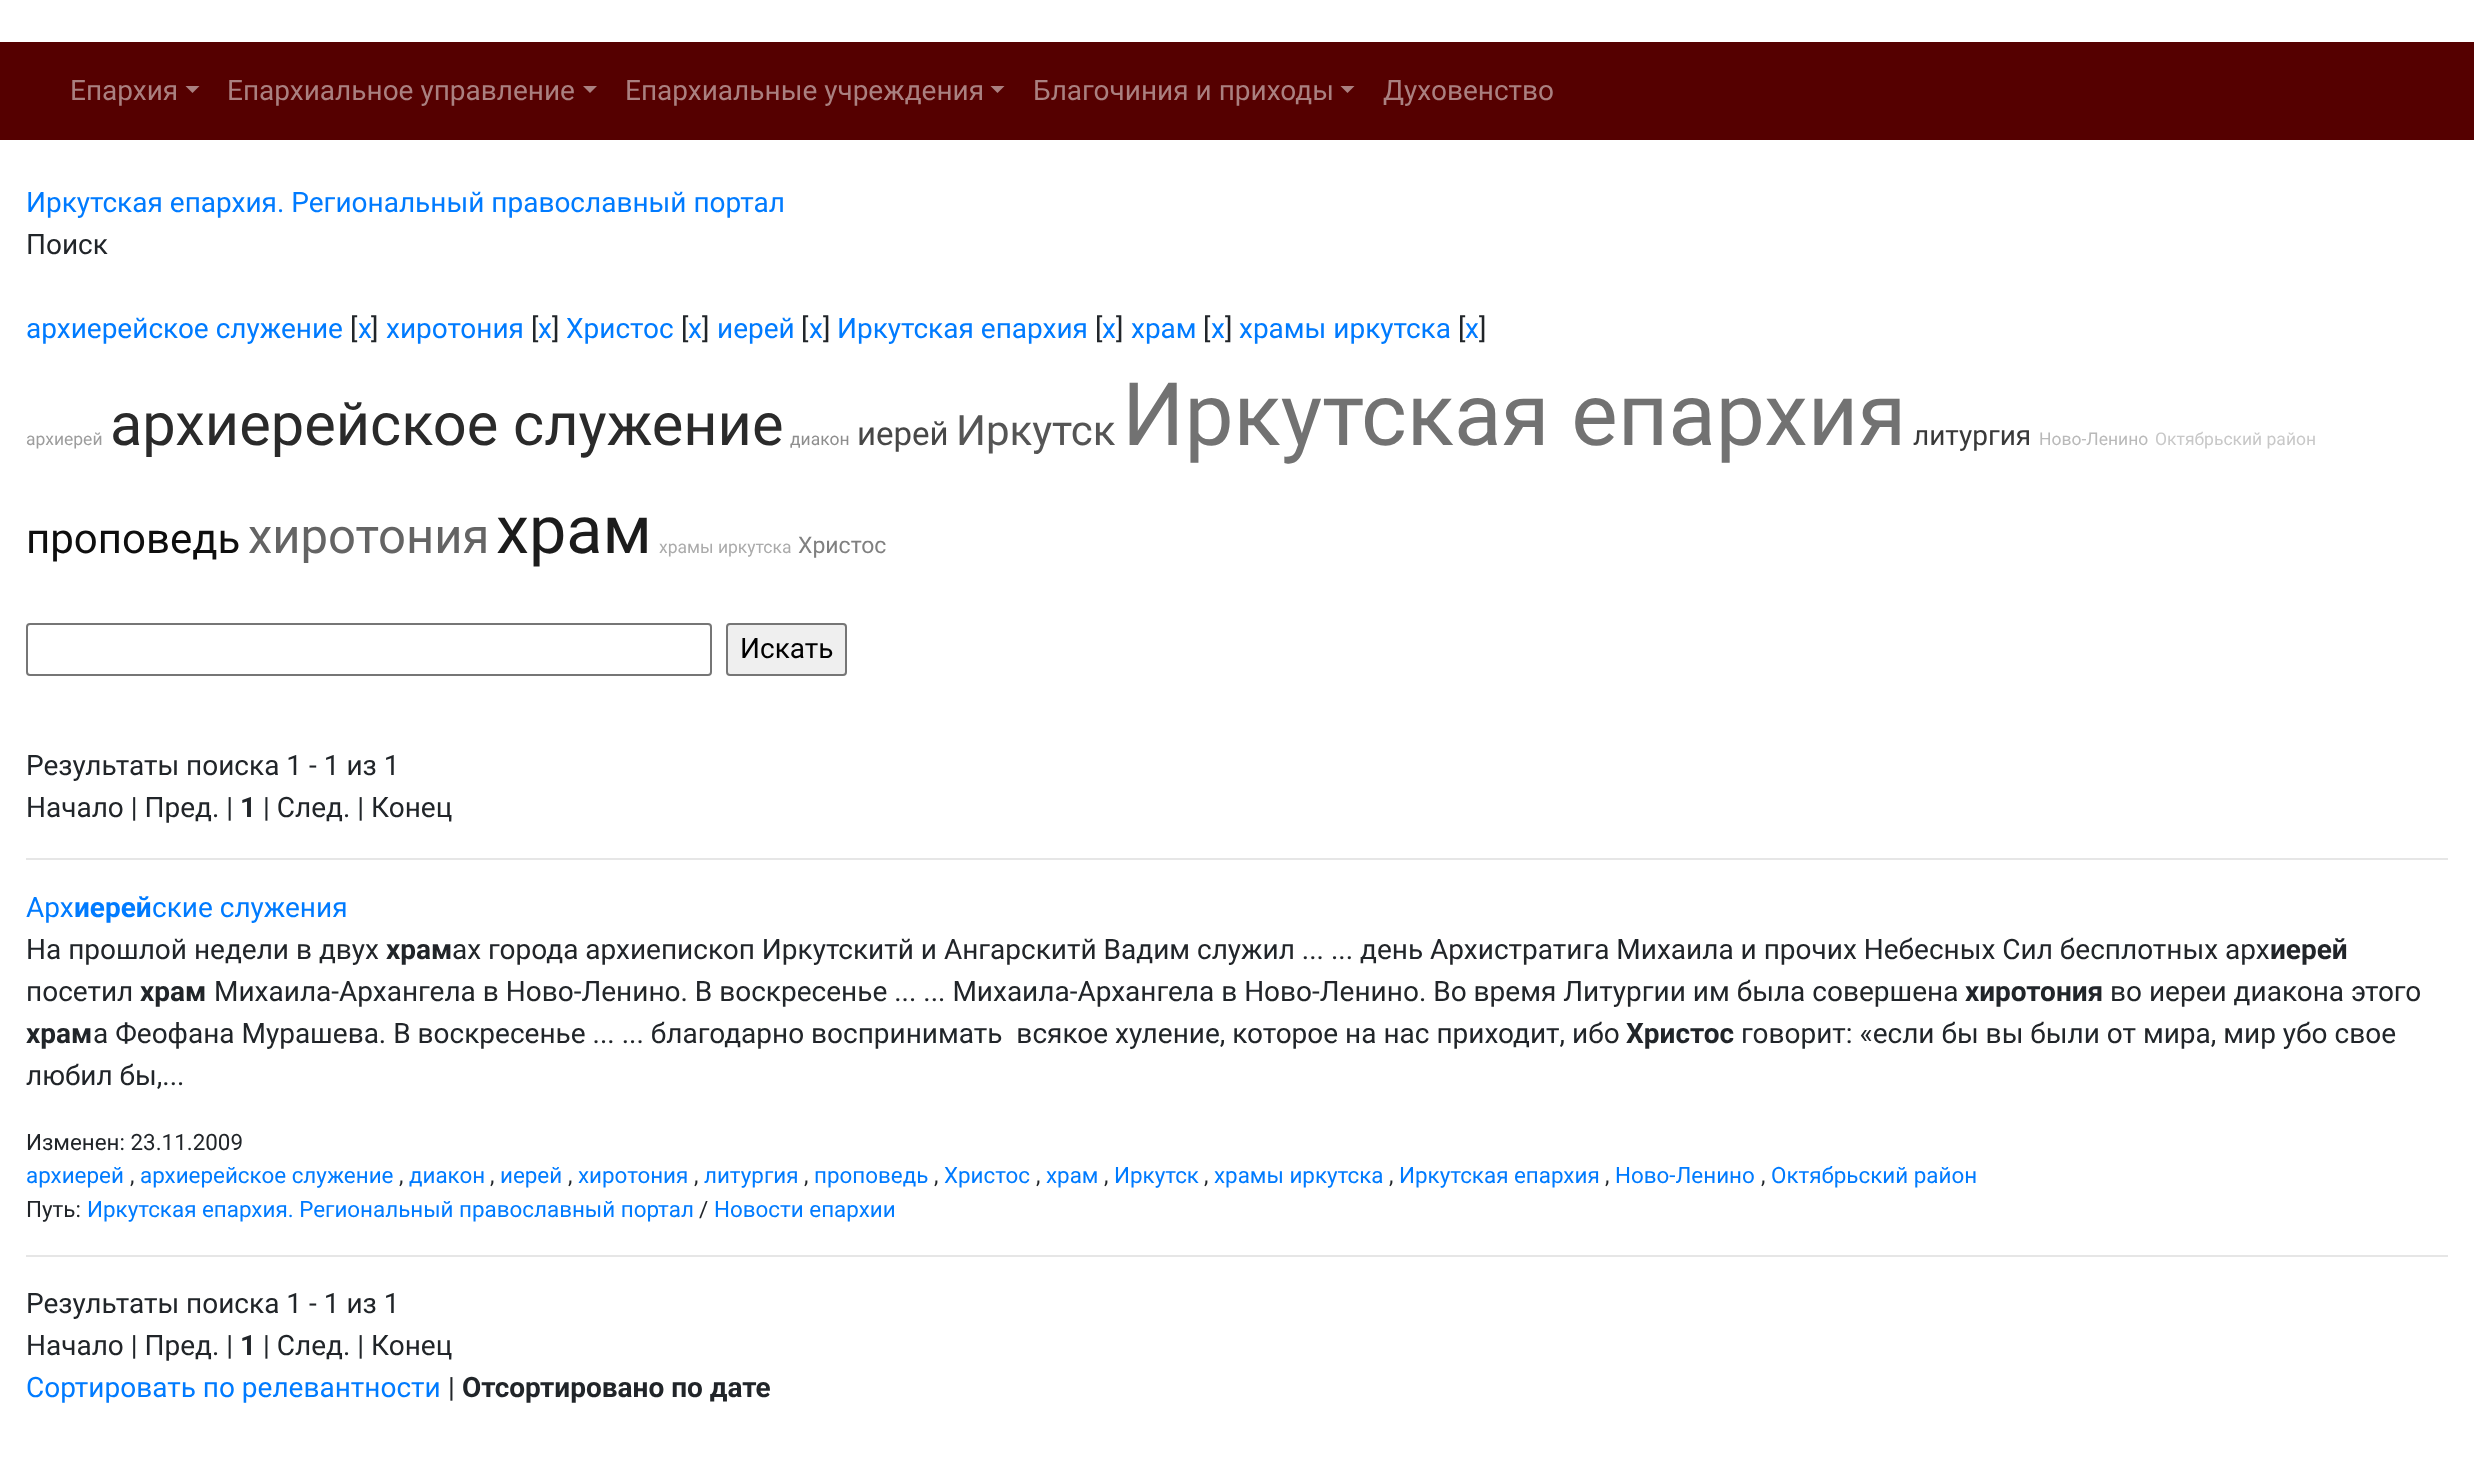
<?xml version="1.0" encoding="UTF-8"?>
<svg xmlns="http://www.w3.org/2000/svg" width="2474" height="1462">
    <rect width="100%" height="100%" fill="#FFFFFF"/>
    <rect x="0" y="42" width="2474" height="98" fill="#550000"/>
    <text x="70" y="100" font-family="Roboto" font-size="28" fill="#AA8080">Епархия</text>
    <path d="M 185.5 86 H 199.5 L 192.5 93 Z" fill="#AA8080"/>
    <text x="227" y="100" font-family="Roboto" font-size="28" fill="#AA8080">Епархиальное управление</text>
    <path d="M 583 86 H 597 L 590 93 Z" fill="#AA8080"/>
    <text x="625" y="100" font-family="Roboto" font-size="28" fill="#AA8080">Епархиальные учреждения</text>
    <path d="M 990.5 86 H 1004.5 L 997.5 93 Z" fill="#AA8080"/>
    <text x="1033" y="100" font-family="Roboto" font-size="28" fill="#AA8080">Благочиния и приходы</text>
    <path d="M 1340.5 86 H 1354.5 L 1347.5 93 Z" fill="#AA8080"/>
    <text x="1383" y="100" font-family="Roboto" font-size="28" fill="#AA8080">Духовенство</text>
    <text x="26" y="212" font-family="Roboto" font-size="28" fill="#007BFF">Иркутская епархия. Региональный православный портал</text>
    <text x="26" y="254" font-family="Roboto" font-size="28" fill="#212529">Поиск</text>
    <text x="26" y="338" font-family="Roboto" font-size="28" fill="#007BFF">архиерейское служение</text>
    <text x="350" y="338" font-family="Roboto" font-size="28" fill="#212529">[</text>
    <text x="358" y="338" font-family="Roboto" font-size="28" fill="#007BFF">x</text>
    <text x="371" y="338" font-family="Roboto" font-size="28" fill="#212529">]</text>
    <text x="386" y="338" font-family="Roboto" font-size="28" fill="#007BFF">хиротония</text>
    <text x="531" y="338" font-family="Roboto" font-size="28" fill="#212529">[</text>
    <text x="538" y="338" font-family="Roboto" font-size="28" fill="#007BFF">x</text>
    <text x="552" y="338" font-family="Roboto" font-size="28" fill="#212529">]</text>
    <text x="566" y="338" font-family="Roboto" font-size="28" fill="#007BFF">Христос</text>
    <text x="681" y="338" font-family="Roboto" font-size="28" fill="#212529">[</text>
    <text x="688" y="338" font-family="Roboto" font-size="28" fill="#007BFF">x</text>
    <text x="702" y="338" font-family="Roboto" font-size="28" fill="#212529">]</text>
    <text x="717" y="338" font-family="Roboto" font-size="28" fill="#007BFF">иерей</text>
    <text x="801" y="338" font-family="Roboto" font-size="28" fill="#212529">[</text>
    <text x="809" y="338" font-family="Roboto" font-size="28" fill="#007BFF">x</text>
    <text x="823" y="338" font-family="Roboto" font-size="28" fill="#212529">]</text>
    <text x="837" y="338" font-family="Roboto" font-size="28" fill="#007BFF">Иркутская епархия</text>
    <text x="1095" y="338" font-family="Roboto" font-size="28" fill="#212529">[</text>
    <text x="1102" y="338" font-family="Roboto" font-size="28" fill="#007BFF">x</text>
    <text x="1116" y="338" font-family="Roboto" font-size="28" fill="#212529">]</text>
    <text x="1131" y="338" font-family="Roboto" font-size="28" fill="#007BFF">храм</text>
    <text x="1203" y="338" font-family="Roboto" font-size="28" fill="#212529">[</text>
    <text x="1211" y="338" font-family="Roboto" font-size="28" fill="#007BFF">x</text>
    <text x="1225" y="338" font-family="Roboto" font-size="28" fill="#212529">]</text>
    <text x="1239" y="338" font-family="Roboto" font-size="28" fill="#007BFF">храмы иркутска</text>
    <text x="1458" y="338" font-family="Roboto" font-size="28" fill="#212529">[</text>
    <text x="1465" y="338" font-family="Roboto" font-size="28" fill="#007BFF">x</text>
    <text x="1479" y="338" font-family="Roboto" font-size="28" fill="#212529">]</text>
    <text x="26" y="445" font-family="Roboto" font-size="17.5" fill="#9D9D9D">архиерей</text>
    <text x="110" y="445" font-family="Roboto" font-size="59.5" fill="#2A2A2A">архиерейское служение</text>
    <text x="790" y="445" font-family="Roboto" font-size="17.5" fill="#8E8E8E">диакон</text>
    <text x="857" y="445" font-family="Roboto" font-size="33" fill="#474747">иерей</text>
    <text x="956" y="445" font-family="Roboto" font-size="42" fill="#555555">Иркутск</text>
    <text x="1122" y="445" font-family="Roboto" font-size="87.5" fill="#727272">Иркутская епархия</text>
    <text x="1913" y="445" font-family="Roboto" font-size="28" fill="#393939">литургия</text>
    <text x="2039" y="445" font-family="Roboto" font-size="17.5" fill="#B9B9B9">Ново-Ленино</text>
    <text x="2155" y="445" font-family="Roboto" font-size="17.5" fill="#C8C8C8">Октябрьский район</text>
    <text x="26" y="553" font-family="Roboto" font-size="42" fill="#0E0E0E">проповедь</text>
    <text x="248" y="553" font-family="Roboto" font-size="49" fill="#646464">хиротония</text>
    <text x="496" y="553" font-family="Roboto" font-size="66.5" fill="#1C1C1C">храм</text>
    <text x="659" y="553" font-family="Roboto" font-size="17.5" fill="#ABABAB">храмы иркутска</text>
    <text x="798" y="553" font-family="Roboto" font-size="23" fill="#808080">Христос</text>
    <rect x="27" y="624" width="684" height="51" rx="3" fill="none" stroke="#767676" stroke-width="2"/>
    <rect x="727" y="624" width="119" height="51" rx="3" fill="#EFEFEF" stroke="#767676" stroke-width="2"/>
    <text x="740" y="658" font-family="Roboto" font-size="28" fill="#000000">Искать</text>
    <text font-family="Roboto" font-size="28" fill="#212529">
        <tspan x="26" y="775">Результаты поиска 1 - 1 из 1</tspan>
        <tspan x="26" y="817">Начало | Пред. |</tspan>
    </text>
    <text x="240" y="817" font-family="Roboto" font-size="28" font-weight="700" fill="#212529">1</text>
    <text x="263" y="817" font-family="Roboto" font-size="28" fill="#212529">| След. | Конец</text>
    <rect x="26" y="858" width="2422" height="2" fill="#E6E6E6"/>
    <text x="26" y="917" font-family="Roboto" font-size="28" fill="#007BFF">Арх</text>
    <text x="74" y="917" font-family="Roboto" font-size="28" font-weight="700" fill="#007BFF">иерей</text>
    <text x="152" y="917" font-family="Roboto" font-size="28" fill="#007BFF">ские служения</text>
    <text x="26" y="959" font-family="Roboto" font-size="28" fill="#212529">На прошлой недели в двух</text>
    <text x="386" y="959" font-family="Roboto" font-size="28" font-weight="700" fill="#212529">храм</text>
    <text x="452" y="959" font-family="Roboto" font-size="28" fill="#212529">ах города архиепископ Иркутскитй и Ангарскитй Вадим служил ... ... день Архистратига Михаила и прочих Небесных Сил бесплотных арх</text>
    <text x="2270" y="959" font-family="Roboto" font-size="28" font-weight="700" fill="#212529">иерей</text>
    <text x="26" y="1001" font-family="Roboto" font-size="28" fill="#212529">посетил</text>
    <text x="140" y="1001" font-family="Roboto" font-size="28" font-weight="700" fill="#212529">храм</text>
    <text x="214" y="1001" font-family="Roboto" font-size="28" fill="#212529">Михаила-Архангела в Ново-Ленино. В воскресенье ... ... Михаила-Архангела в Ново-Ленино. Во время Литургии им была совершена</text>
    <text x="1965" y="1001" font-family="Roboto" font-size="28" font-weight="700" fill="#212529">хиротония</text>
    <text x="2110" y="1001" font-family="Roboto" font-size="28" fill="#212529">во иереи диакона этого</text>
    <text x="26" y="1043" font-family="Roboto" font-size="28" font-weight="700" fill="#212529">храм</text>
    <text x="93" y="1043" font-family="Roboto" font-size="28" fill="#212529" xml:space="preserve">а Феофана Мурашева. В воскресенье ... ... благодарно воспринимать  всякое хуление, которое на нас приходит, ибо</text>
    <text x="1626" y="1043" font-family="Roboto" font-size="28" font-weight="700" fill="#212529">Христос</text>
    <text x="1741" y="1043" font-family="Roboto" font-size="28" fill="#212529">говорит: «если бы вы были от мира, мир убо свое</text>
    <text x="26" y="1085" font-family="Roboto" font-size="28" fill="#212529">любил бы,...</text>
    <text x="26" y="1150" font-family="Roboto" font-size="22.4" fill="#212529">Изменен: 23.11.2009</text>
    <text x="26" y="1183" font-family="Roboto" font-size="22.4" fill="#007BFF">архиерей</text>
    <text x="130" y="1183" font-family="Roboto" font-size="22.4" fill="#212529">,</text>
    <text x="140" y="1183" font-family="Roboto" font-size="22.4" fill="#007BFF">архиерейское служение</text>
    <text x="399" y="1183" font-family="Roboto" font-size="22.4" fill="#212529">,</text>
    <text x="409" y="1183" font-family="Roboto" font-size="22.4" fill="#007BFF">диакон</text>
    <text x="490" y="1183" font-family="Roboto" font-size="22.4" fill="#212529">,</text>
    <text x="500" y="1183" font-family="Roboto" font-size="22.4" fill="#007BFF">иерей</text>
    <text x="568" y="1183" font-family="Roboto" font-size="22.4" fill="#212529">,</text>
    <text x="578" y="1183" font-family="Roboto" font-size="22.4" fill="#007BFF">хиротония</text>
    <text x="694" y="1183" font-family="Roboto" font-size="22.4" fill="#212529">,</text>
    <text x="704" y="1183" font-family="Roboto" font-size="22.4" fill="#007BFF">литургия</text>
    <text x="804" y="1183" font-family="Roboto" font-size="22.4" fill="#212529">,</text>
    <text x="814" y="1183" font-family="Roboto" font-size="22.4" fill="#007BFF">проповедь</text>
    <text x="934" y="1183" font-family="Roboto" font-size="22.4" fill="#212529">,</text>
    <text x="944" y="1183" font-family="Roboto" font-size="22.4" fill="#007BFF">Христос</text>
    <text x="1036" y="1183" font-family="Roboto" font-size="22.4" fill="#212529">,</text>
    <text x="1046" y="1183" font-family="Roboto" font-size="22.4" fill="#007BFF">храм</text>
    <text x="1104" y="1183" font-family="Roboto" font-size="22.4" fill="#212529">,</text>
    <text x="1114" y="1183" font-family="Roboto" font-size="22.4" fill="#007BFF">Иркутск</text>
    <text x="1204" y="1183" font-family="Roboto" font-size="22.4" fill="#212529">,</text>
    <text x="1214" y="1183" font-family="Roboto" font-size="22.4" fill="#007BFF">храмы иркутска</text>
    <text x="1389" y="1183" font-family="Roboto" font-size="22.4" fill="#212529">,</text>
    <text x="1399" y="1183" font-family="Roboto" font-size="22.4" fill="#007BFF">Иркутская епархия</text>
    <text x="1605" y="1183" font-family="Roboto" font-size="22.4" fill="#212529">,</text>
    <text x="1615" y="1183" font-family="Roboto" font-size="22.4" fill="#007BFF">Ново-Ленино</text>
    <text x="1761" y="1183" font-family="Roboto" font-size="22.4" fill="#212529">,</text>
    <text x="1771" y="1183" font-family="Roboto" font-size="22.4" fill="#007BFF">Октябрьский район</text>
    <text x="26" y="1217" font-family="Roboto" font-size="22.4" fill="#212529">Путь:</text>
    <text x="87" y="1217" font-family="Roboto" font-size="22.4" fill="#007BFF">Иркутская епархия. Региональный православный портал</text>
    <text x="699" y="1217" font-family="Roboto" font-size="22.4" fill="#212529">/</text>
    <text x="714" y="1217" font-family="Roboto" font-size="22.4" fill="#007BFF">Новости епархии</text>
    <rect x="26" y="1255" width="2422" height="2" fill="#E6E6E6"/>
    <text font-family="Roboto" font-size="28" fill="#212529">
        <tspan x="26" y="1313">Результаты поиска 1 - 1 из 1</tspan>
        <tspan x="26" y="1355">Начало | Пред. |</tspan>
    </text>
    <text x="240" y="1355" font-family="Roboto" font-size="28" font-weight="700" fill="#212529">1</text>
    <text x="263" y="1355" font-family="Roboto" font-size="28" fill="#212529">| След. | Конец</text>
    <text x="26" y="1397" font-family="Roboto" font-size="28" fill="#007BFF">Сортировать по релевантности</text>
    <text x="448" y="1397" font-family="Roboto" font-size="28" fill="#212529">|</text>
    <text x="462" y="1397" font-family="Roboto" font-size="28" font-weight="700" fill="#212529">Отсортировано по дате</text>
</svg>
